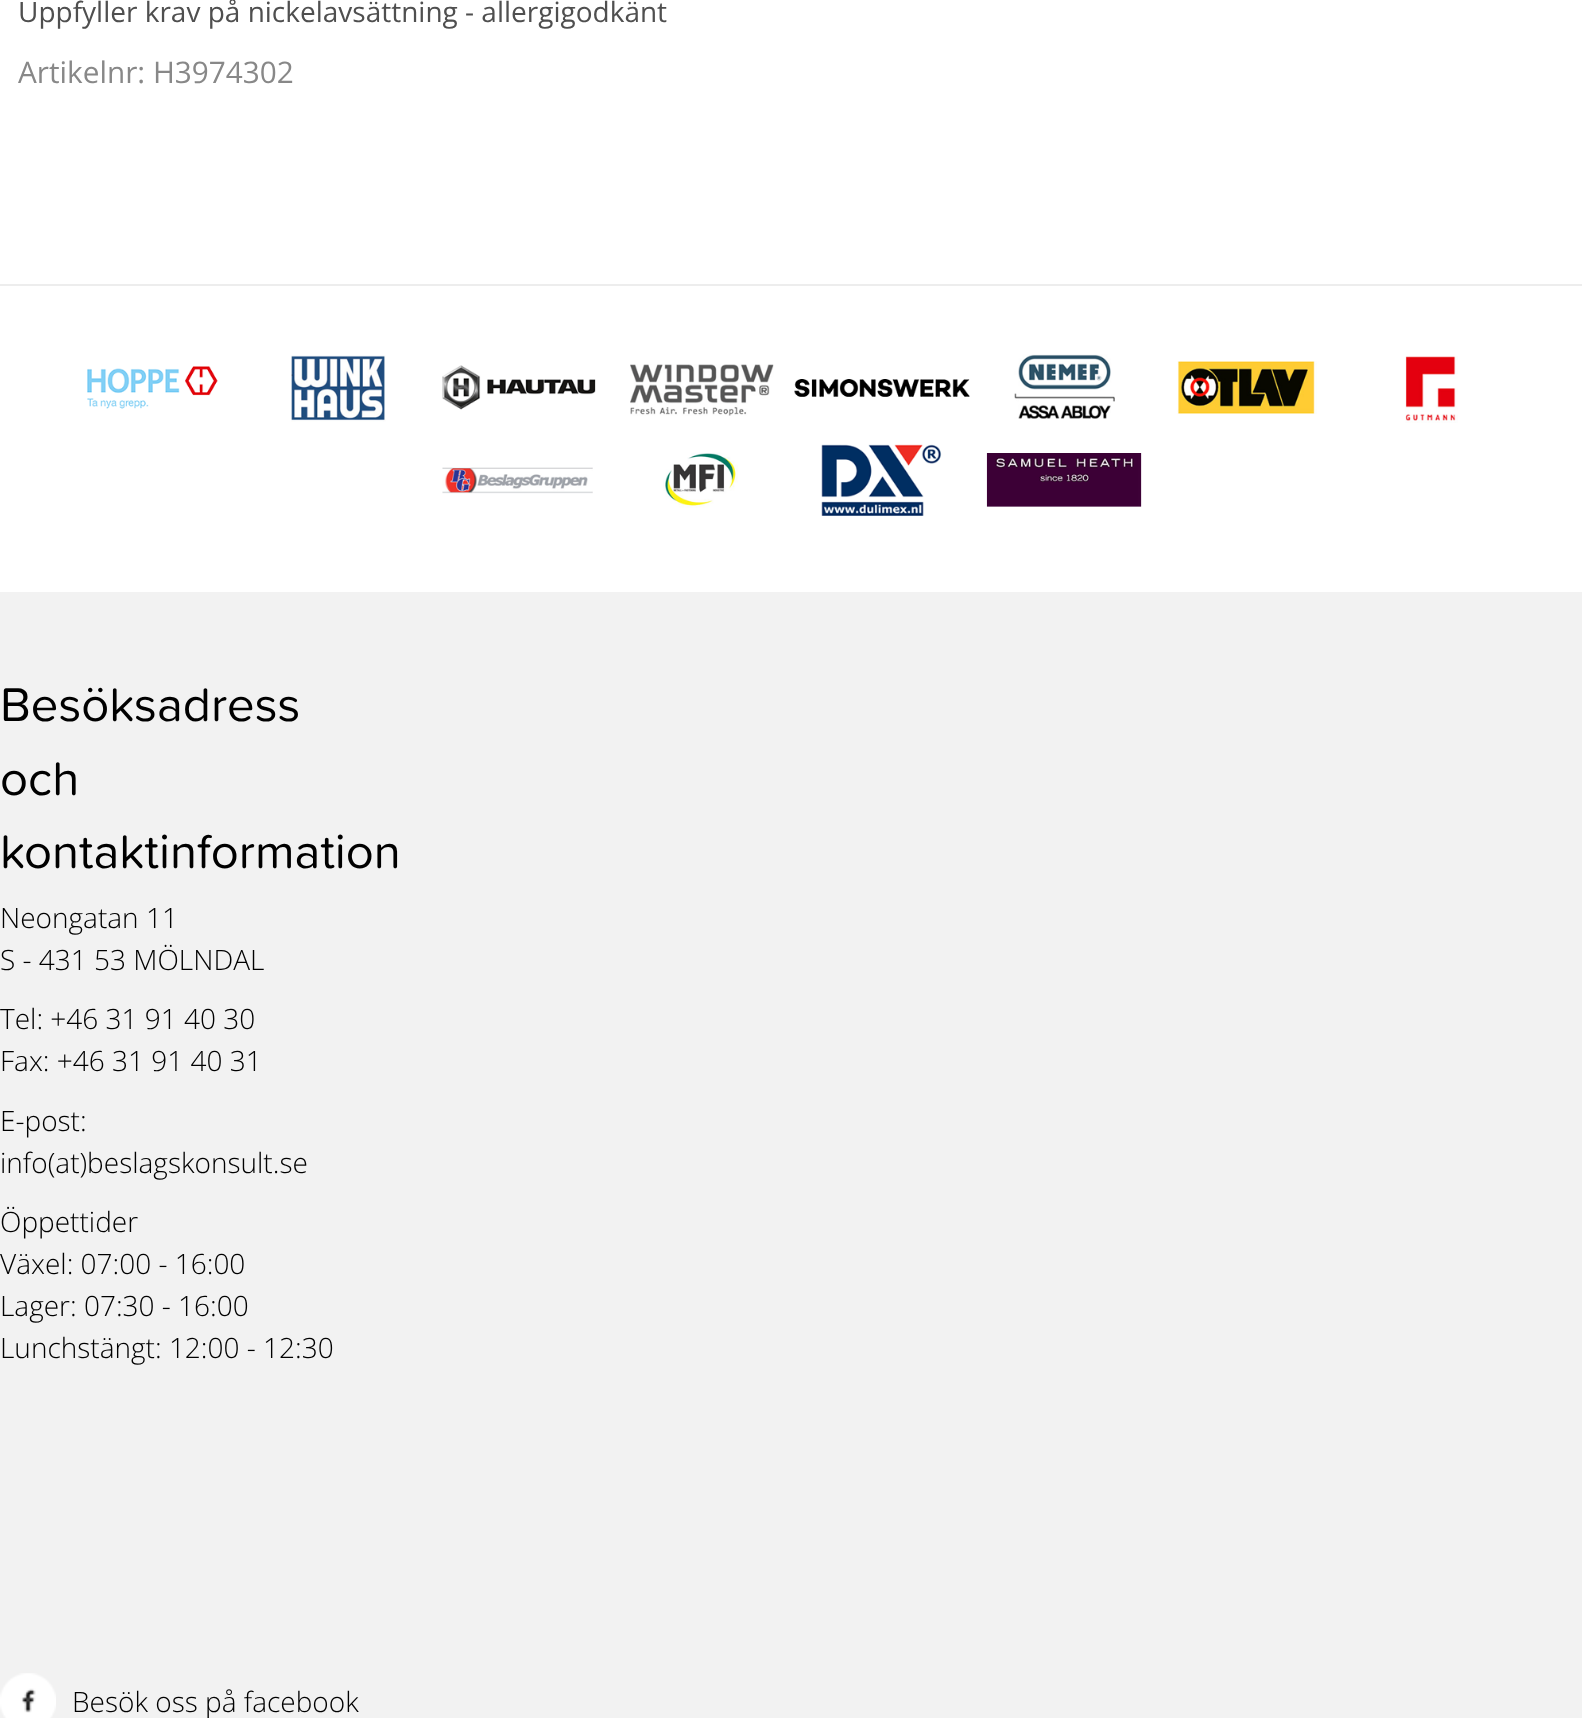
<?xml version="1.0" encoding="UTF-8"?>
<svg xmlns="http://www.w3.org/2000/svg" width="1582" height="1718">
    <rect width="100%" height="100%" fill="#FFFFFF"/>
    <text x="18" y="22" font-family="Open Sans" font-size="28" fill="#4F4F4F">Uppfyller krav på nickelavsättning - allergigodkänt</text>
    <text x="18" y="83" font-family="Open Sans" font-size="29.75" fill="#888888">Artikelnr: H3974302</text>
    <rect x="0" y="284" width="1582" height="2" fill="#EDEDED"/>
    <image x="87" y="366" width="131" height="43" href="img_01.png"/>
    <image x="291" y="355" width="95" height="67" href="img_02.png"/>
    <image x="442" y="365" width="154" height="45" href="img_03.png"/>
    <image x="630" y="364" width="144" height="52" href="img_04.png"/>
    <image x="794" y="379" width="176" height="18" href="img_05.png"/>
    <image x="1014" y="354" width="101" height="65" href="img_06.png"/>
    <image x="1177" y="361" width="140" height="53" href="img_07.png"/>
    <image x="1405" y="356" width="53" height="67" href="img_08.png"/>
    <image x="442" y="467" width="151" height="27" href="img_09.png"/>
    <image x="663" y="452" width="75" height="56" href="img_10.png"/>
    <image x="821" y="444" width="121" height="72" href="img_11.png"/>
    <image x="986" y="453" width="156" height="54" href="img_12.png"/>
    <rect x="0" y="592" width="1582" height="1126" fill="#F2F2F2"/>
    <text font-family="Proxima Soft" font-size="49" fill="#000000">
        <tspan x="0" y="721">Besöksadress</tspan>
        <tspan x="0" y="795">och</tspan>
        <tspan x="0" y="868">kontaktinformation</tspan>
    </text>
    <text font-family="Open Sans" font-size="28" font-weight="300" fill="#000000">
        <tspan x="0" y="928">Neongatan 11</tspan>
        <tspan x="0" y="970">S - 431 53 MÖLNDAL</tspan>
    </text>
    <text font-family="Open Sans" font-size="28" font-weight="300" fill="#000000">
        <tspan x="0" y="1029">Tel: +46 31 91 40 30</tspan>
        <tspan x="0" y="1071">Fax: +46 31 91 40 31</tspan>
    </text>
    <text font-family="Open Sans" font-size="28" font-weight="300" fill="#000000">
        <tspan x="0" y="1131">E-post:</tspan>
        <tspan x="0" y="1173">info(at)beslagskonsult.se</tspan>
    </text>
    <text font-family="Open Sans" font-size="28" font-weight="300" fill="#000000">
        <tspan x="0" y="1232">Öppettider</tspan>
        <tspan x="0" y="1274">Växel: 07:00 - 16:00</tspan>
        <tspan x="0" y="1316">Lager: 07:30 - 16:00</tspan>
        <tspan x="0" y="1358">Lunchstängt: 12:00 - 12:30</tspan>
    </text>
    <image x="0" y="1673" width="56" height="45" href="img_13.png"/>
    <text x="72" y="1712" font-family="Open Sans" font-size="28" font-weight="300" fill="#000000">Besök oss på facebook</text>
</svg>
